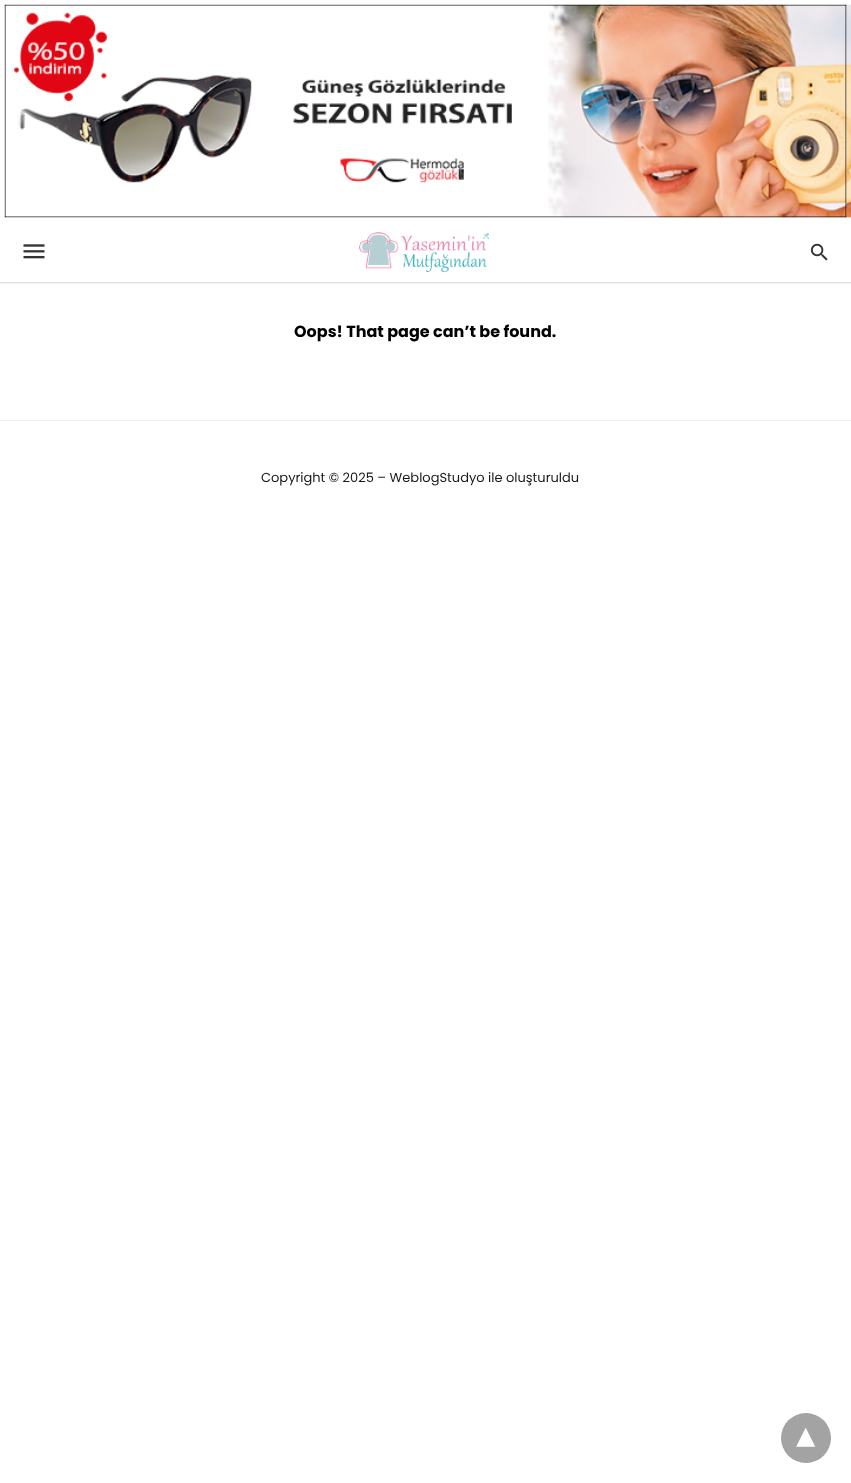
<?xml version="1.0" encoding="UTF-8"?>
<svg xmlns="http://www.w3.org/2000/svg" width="851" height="1483">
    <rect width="100%" height="100%" fill="#FFFFFF"/>
    <image x="4" y="4" width="847" height="214" href="img_01.png"/>
    <rect x="0" y="282" width="851" height="1" fill="#E0E0E0"/>
    <image x="23" y="244" width="22" height="15" href="img_02.png"/>
    <image x="359" y="232" width="130" height="40" href="img_03.png"/>
    <image x="810" y="243" width="18" height="18" href="img_04.png"/>
    <rect x="0" y="283" width="851" height="1" fill="#F2F2F2"/>
    <text x="294" y="337" font-family="Poppins" font-size="16" font-weight="700" fill="#000000">Oops! That page can’t be found.</text>
    <rect x="0" y="420" width="851" height="1" fill="#EEEEEE"/>
    <text x="261" y="482" font-family="Poppins" font-size="13" fill="#191919">Copyright © 2025 – WeblogStudyo ile oluşturuldu</text>
    <circle cx="806" cy="1438" r="25" fill="#A3A3A3"/>
    <text x="815" y="1428" transform="rotate(180 815 1428)" font-family="DejaVu Sans" font-size="35" font-weight="700" fill="#FFFFFF">▾</text>
</svg>
